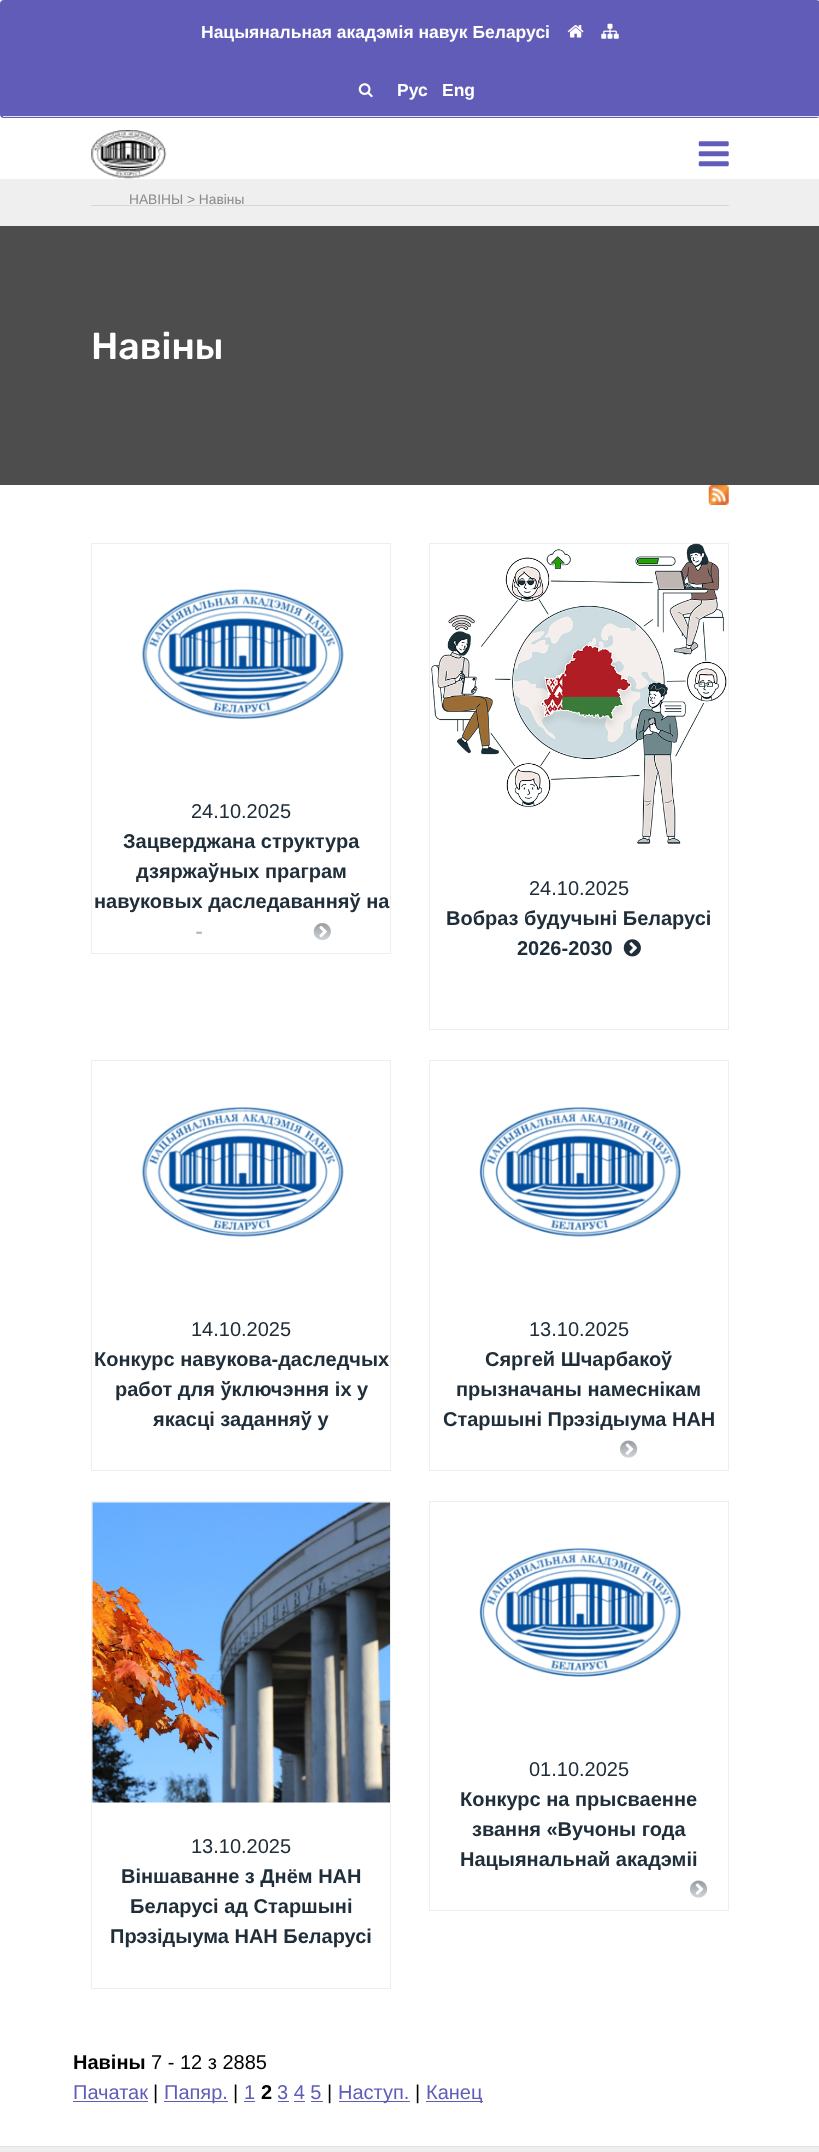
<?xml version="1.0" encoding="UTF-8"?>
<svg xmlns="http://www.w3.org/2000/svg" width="819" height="2152">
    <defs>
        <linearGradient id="g1" gradientUnits="userSpaceOnUse" x1="241" y1="915" x2="241" y2="953"><stop offset="0" stop-color="#FFFFFF" stop-opacity="0.4"/><stop offset="1" stop-color="#FFFFFF"/></linearGradient>
        <linearGradient id="g2" gradientUnits="userSpaceOnUse" x1="579" y1="1433" x2="579" y2="1470"><stop offset="0" stop-color="#FFFFFF" stop-opacity="0.4"/><stop offset="1" stop-color="#FFFFFF"/></linearGradient>
        <linearGradient id="g3" gradientUnits="userSpaceOnUse" x1="579" y1="1873" x2="579" y2="1910"><stop offset="0" stop-color="#FFFFFF" stop-opacity="0.4"/><stop offset="1" stop-color="#FFFFFF"/></linearGradient>
    </defs>
    <rect width="100%" height="100%" fill="#FFFFFF"/>
    <rect x="0" y="0" width="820" height="118" rx="4" fill="#605CB8"/>
    <rect x="3" y="116" width="816" height="1" fill="#E6E6E6"/>
    <text x="201" y="38" font-family="Liberation Sans" font-size="17.5" font-weight="700" fill="#FFFFFF">Нацыянальная акадэмія навук Беларусі</text>
    <image x="567" y="25" width="17" height="13" href="img_01.png"/>
    <image x="601" y="23" width="18" height="16" href="img_02.png"/>
    <image x="358" y="83" width="15" height="15" href="img_03.png"/>
    <text x="397" y="96" font-family="Liberation Sans" font-size="17.5" font-weight="700" fill="#FFFFFF">Рус</text>
    <text x="442" y="96" font-family="Liberation Sans" font-size="17.5" font-weight="700" fill="#FFFFFF">Eng</text>
    <image x="91" y="130" width="76" height="49" href="img_04.png"/>
    <image x="698" y="141" width="31" height="26" href="img_05.png"/>
    <rect x="0" y="179" width="819" height="47" fill="#EFEFEF"/>
    <text x="129" y="204" font-family="Liberation Sans" font-size="13.75" fill="#8B8989">НАВIНЫ &gt; Навіны</text>
    <rect x="91" y="205" width="638" height="1" fill="#D7D7D7"/>
    <rect x="0" y="226" width="819" height="259" fill="#4D4D4D"/>
    <text x="91" y="359" font-family="Rubik" font-size="37.5" font-weight="500" fill="#FFFFFF">Навiны</text>
    <image x="708" y="485" width="21" height="20" href="img_06.png"/>
    <rect x="91.5" y="543.5" width="299" height="410" fill="none" stroke="#EEEEEE"/>
    <image x="141" y="589" width="203" height="130" href="img_07.png"/>
    <text x="191" y="818" font-family="Liberation Sans" font-size="20" fill="#202E39">24.10.2025</text>
    <text x="123" y="848" font-family="Liberation Sans" font-size="20" font-weight="700" fill="#202E39">Зацверджана структура</text>
    <text x="136" y="878" font-family="Liberation Sans" font-size="20" font-weight="700" fill="#202E39">дзяржаўных праграм</text>
    <text x="94" y="908" font-family="Liberation Sans" font-size="20" font-weight="700" fill="#202E39">навуковых даследаванняў на</text>
    <text x="196" y="938" font-family="Liberation Sans" font-size="20" font-weight="700" fill="#202E39">-</text>
    <image x="313" y="923" width="18" height="18" href="img_08.png"/>
    <rect x="197" y="923" width="134" height="18" fill="url(#g1)"/>
    <rect x="429.5" y="543.5" width="299" height="486" fill="none" stroke="#EEEEEE"/>
    <image x="431" y="543" width="296" height="301" href="img_09.png"/>
    <text x="529" y="895" font-family="Liberation Sans" font-size="20" fill="#202E39">24.10.2025</text>
    <text x="446" y="925" font-family="Liberation Sans" font-size="20" font-weight="700" fill="#202E39">Вобраз будучыні Беларусі</text>
    <text x="517" y="955" font-family="Liberation Sans" font-size="20" font-weight="700" fill="#202E39">2026-2030</text>
    <image x="623" y="939" width="18" height="18" href="img_10.png"/>
    <rect x="91.5" y="1060.5" width="299" height="410" fill="none" stroke="#EEEEEE"/>
    <image x="141" y="1107" width="203" height="130" href="img_11.png"/>
    <text x="191" y="1336" font-family="Liberation Sans" font-size="20" fill="#202E39">14.10.2025</text>
    <text x="94" y="1366" font-family="Liberation Sans" font-size="20" font-weight="700" fill="#202E39">Конкурс навукова-даследчых</text>
    <text x="115" y="1396" font-family="Liberation Sans" font-size="20" font-weight="700" fill="#202E39">работ для ўключэння іх у</text>
    <text x="153" y="1426" font-family="Liberation Sans" font-size="20" font-weight="700" fill="#202E39">якасці заданняў у</text>
    <rect x="429.5" y="1060.5" width="299" height="410" fill="none" stroke="#EEEEEE"/>
    <image x="479" y="1107" width="202" height="130" href="img_12.png"/>
    <text x="529" y="1336" font-family="Liberation Sans" font-size="20" fill="#202E39">13.10.2025</text>
    <text x="485" y="1366" font-family="Liberation Sans" font-size="20" font-weight="700" fill="#202E39">Сяргей Шчарбакоў</text>
    <text x="456" y="1396" font-family="Liberation Sans" font-size="20" font-weight="700" fill="#202E39">прызначаны намеснікам</text>
    <text x="443" y="1426" font-family="Liberation Sans" font-size="20" font-weight="700" fill="#202E39">Старшыні Прэзідыума НАН</text>
    <image x="620" y="1440" width="18" height="18" href="img_13.png"/>
    <rect x="620" y="1440" width="18" height="18" fill="url(#g2)"/>
    <rect x="429.5" y="1501.5" width="299" height="409" fill="none" stroke="#EEEEEE"/>
    <image x="479" y="1548" width="202" height="129" href="img_14.png"/>
    <text x="529" y="1776" font-family="Liberation Sans" font-size="20" fill="#202E39">01.10.2025</text>
    <text x="460" y="1806" font-family="Liberation Sans" font-size="20" font-weight="700" fill="#202E39">Конкурс на прысваенне</text>
    <text x="472" y="1836" font-family="Liberation Sans" font-size="20" font-weight="700" fill="#202E39">звання «Вучоны года</text>
    <text x="460" y="1866" font-family="Liberation Sans" font-size="20" font-weight="700" fill="#202E39">Нацыянальнай акадэміі</text>
    <image x="690" y="1880" width="18" height="18" href="img_13.png"/>
    <rect x="690" y="1880" width="18" height="18" fill="url(#g3)"/>
    <rect x="91.5" y="1501.5" width="299" height="487" fill="none" stroke="#EEEEEE"/>
    <image x="92" y="1502" width="298" height="301" href="img_15.png"/>
    <text x="191" y="1853" font-family="Liberation Sans" font-size="20" fill="#202E39">13.10.2025</text>
    <text x="121" y="1883" font-family="Liberation Sans" font-size="20" font-weight="700" fill="#202E39">Віншаванне з Днём НАН</text>
    <text x="130" y="1913" font-family="Liberation Sans" font-size="20" font-weight="700" fill="#202E39">Беларусі ад Старшыні</text>
    <text x="110" y="1943" font-family="Liberation Sans" font-size="20" font-weight="700" fill="#202E39">Прэзідыума НАН Беларусі</text>
    <text x="73" y="2069" font-family="Liberation Sans" font-size="20" font-weight="700" fill="#000000">Навiны</text>
    <text x="151" y="2069" font-family="Liberation Sans" font-size="20" fill="#000000">7 - 12 з 2885</text>
    <text x="73" y="2099" font-family="Liberation Sans" font-size="20" fill="#605CB8">Пачатак</text>
    <rect x="73" y="2101" width="75" height="1" fill="#605CB8"/>
    <text x="153" y="2099" font-family="Liberation Sans" font-size="20" fill="#000000">|</text>
    <rect x="164" y="2101" width="64" height="1" fill="#605CB8"/>
    <text x="164" y="2099" font-family="Liberation Sans" font-size="20" fill="#605CB8">Папяр.</text>
    <text x="233" y="2099" font-family="Liberation Sans" font-size="20" fill="#000000">|</text>
    <text x="244" y="2099" font-family="Liberation Sans" font-size="20" fill="#605CB8">1</text>
    <rect x="244" y="2101" width="11" height="1" fill="#605CB8"/>
    <text x="261" y="2099" font-family="Liberation Sans" font-size="20" font-weight="700" fill="#000000">2</text>
    <text x="277" y="2099" font-family="Liberation Sans" font-size="20" fill="#605CB8">3 4 5</text>
    <rect x="278" y="2101" width="11" height="1" fill="#605CB8"/>
    <rect x="294" y="2101" width="11" height="1" fill="#605CB8"/>
    <rect x="311" y="2101" width="12" height="1" fill="#605CB8"/>
    <text x="327" y="2099" font-family="Liberation Sans" font-size="20" fill="#000000">|</text>
    <rect x="339" y="2101" width="71" height="1" fill="#605CB8"/>
    <text x="338" y="2099" font-family="Liberation Sans" font-size="20" fill="#605CB8">Наступ.</text>
    <text x="415" y="2099" font-family="Liberation Sans" font-size="20" fill="#000000">|</text>
    <rect x="426" y="2101" width="57" height="1" fill="#605CB8"/>
    <text x="426" y="2099" font-family="Liberation Sans" font-size="20" fill="#605CB8">Канец</text>
    <rect x="0" y="2147" width="819" height="5" fill="#EFEFEF"/>
    <rect x="0" y="2146" width="819" height="1" fill="#E0E3E2"/>
</svg>
